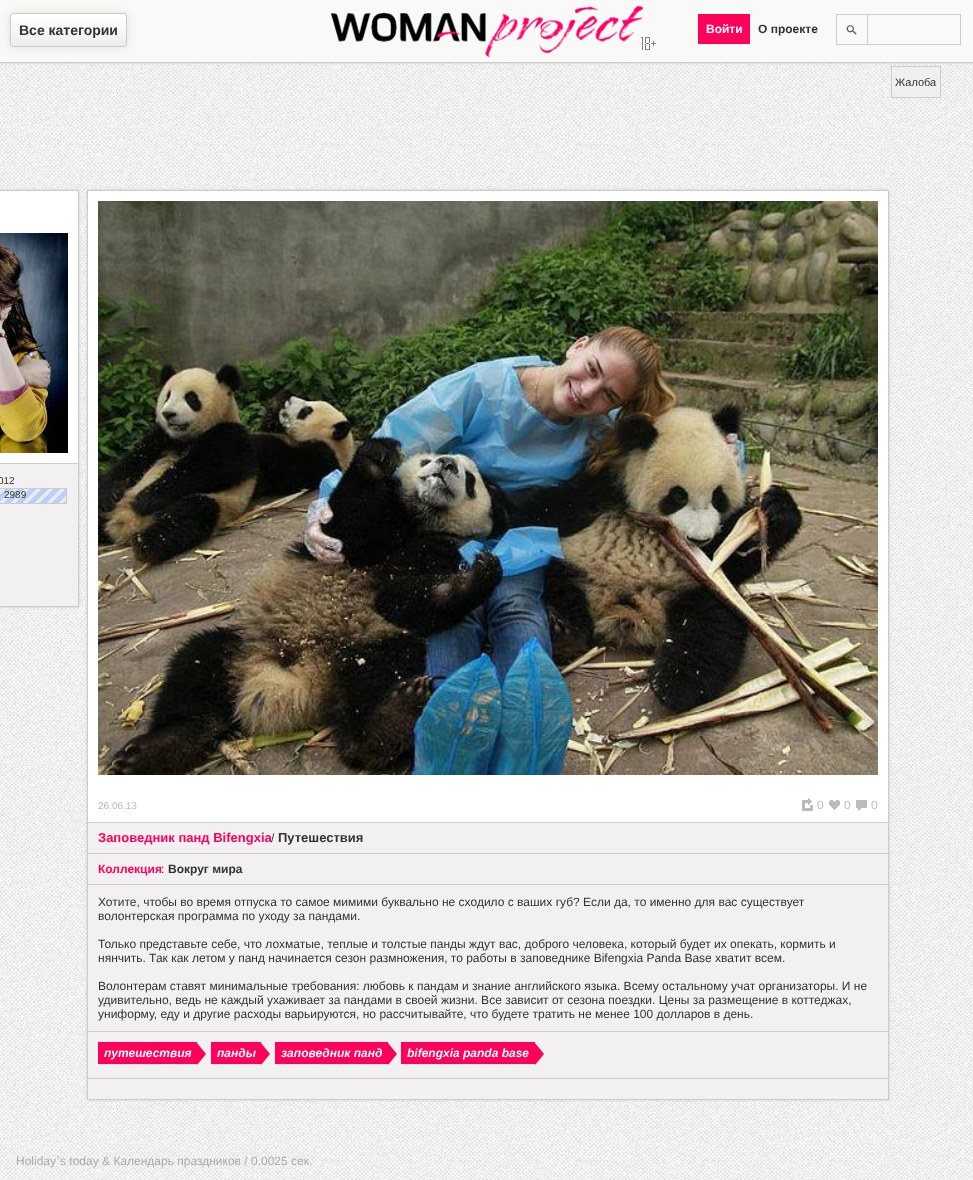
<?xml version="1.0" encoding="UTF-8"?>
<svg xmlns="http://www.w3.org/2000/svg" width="973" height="1180">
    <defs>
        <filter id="blur1" x="-50%" y="-200%" width="200%" height="500%"><feGaussianBlur stdDeviation="1.5"/></filter>
        <filter id="blur2" x="-50%" y="-200%" width="200%" height="500%"><feGaussianBlur stdDeviation="5"/></filter>
        <clipPath id="clip1"><rect x="10" y="13" width="117" height="34" rx="3"/></clipPath>
        <linearGradient id="g1" gradientUnits="userSpaceOnUse" x1="69" y1="14" x2="69" y2="46"><stop offset="0" stop-color="#FFFFFF"/><stop offset="1" stop-color="#EEEEEE"/></linearGradient>
    </defs>
    <rect width="100%" height="100%" fill="#FFFFFF"/>
    <image x="0" y="63" width="973" height="1117" href="img_01.png"/>
    <rect x="891.5" y="66.5" width="49" height="31" fill="#F0F0F0" stroke="#CCCCCC"/>
    <rect x="0" y="0" width="973" height="63" fill="#CCCCCC" filter="url(#blur1)"/>
    <rect x="0" y="0" width="973" height="62" fill="#F9F9F8"/>
    <rect x="0" y="62" width="973" height="1" fill="#CCCCCC"/>
    <rect x="10" y="13" width="117" height="34" rx="3" fill="#000000" fill-opacity="0.1" filter="url(#blur2)"/>
    <g clip-path="url(#clip1)">
        <rect x="10" y="14" width="117" height="32" fill="url(#g1)"/>
    </g>
    <rect x="10.5" y="13.5" width="116" height="33" rx="2.5" fill="none" stroke="#CBCBCB"/>
    <text x="19" y="35" font-family="Liberation Sans" font-size="14" font-weight="700" fill="#333333">Все категории</text>
    <image x="641" y="37" width="15" height="13" href="img_02.png"/>
    <image x="331" y="6" width="312" height="51" href="img_03.png"/>
    <rect x="698" y="14" width="52" height="30" fill="#FF005A"/>
    <text x="706" y="33" font-family="Liberation Sans" font-size="12" font-weight="700" fill="#FFFFFF">Войти</text>
    <text x="758" y="33" font-family="Liberation Sans" font-size="12" font-weight="700" fill="#333333">О проекте</text>
    <image x="846" y="25" width="11" height="10" href="img_04.png"/>
    <rect x="836" y="14" width="31" height="1" fill="#CCCCCC"/>
    <rect x="836" y="44" width="31" height="1" fill="#CCCCCC"/>
    <rect x="836" y="14" width="1" height="31" fill="#CCCCCC"/>
    <rect x="867.5" y="14.5" width="93" height="30" fill="none" stroke="#CCCCCC"/>
    <text x="895" y="86" font-family="Liberation Sans" font-size="11" fill="#333333">Жалоба</text>
    <rect x="-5" y="190" width="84" height="417" fill="#CCCCCC" filter="url(#blur1)"/>
    <rect x="0" y="464" width="78" height="142" fill="#F2F0F0"/>
    <rect x="-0.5" y="190.5" width="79" height="416" fill="none" stroke="#CCCCCC"/>
    <rect x="0" y="191" width="78" height="272" fill="#FFFFFF"/>
    <rect x="77" y="463" width="1" height="1" fill="#CCCCCC"/>
    <image x="0" y="233" width="68" height="220" href="img_05.png"/>
    <text x="-2" y="484" font-family="Liberation Sans" font-size="10" fill="#333333">012</text>
    <rect x="-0.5" y="488.5" width="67" height="15" fill="#FFFFFF" stroke="#CCCCCC"/>
    <image x="0" y="489" width="66" height="14" href="img_06.png"/>
    <text x="4" y="498" font-family="Liberation Sans" font-size="10" fill="#333333">2989</text>
    <rect x="87" y="190" width="802" height="910" fill="#CCCCCC" filter="url(#blur1)"/>
    <rect x="88" y="823" width="800" height="276" fill="#F2F0F0"/>
    <rect x="87.5" y="190.5" width="801" height="909" fill="none" stroke="#CCCCCC"/>
    <rect x="88" y="191" width="800" height="631" fill="#FFFFFF"/>
    <image x="98" y="201" width="780" height="574" href="img_07.png"/>
    <text x="98" y="809" font-family="Liberation Sans" font-size="10" fill="#BBBBBB">26.06.13</text>
    <image x="802" y="798" width="11" height="13" href="img_08.png"/>
    <text x="817" y="809" font-family="Liberation Sans" font-size="12" fill="#BBBBBB">0</text>
    <image x="829" y="800" width="11" height="10" href="img_09.png"/>
    <text x="844" y="809" font-family="Liberation Sans" font-size="12" fill="#BBBBBB">0</text>
    <image x="856" y="800" width="11" height="11" href="img_10.png"/>
    <text x="871" y="809" font-family="Liberation Sans" font-size="12" fill="#BBBBBB">0</text>
    <rect x="88" y="822" width="800" height="1" fill="#CCCCCC"/>
    <rect x="88" y="853" width="800" height="1" fill="#CCCCCC"/>
    <text x="98" y="842" font-family="Liberation Sans" font-size="13" font-weight="700" fill="#FF005A">Заповедник панд Bifengxia</text>
    <text x="271" y="842" font-family="Liberation Sans" font-size="12" fill="#333333">/</text>
    <text x="278" y="842" font-family="Liberation Sans" font-size="13" font-weight="700" fill="#333333">Путешествия</text>
    <rect x="88" y="884" width="800" height="1" fill="#CCCCCC"/>
    <text x="98" y="873" font-family="Liberation Sans" font-size="12" font-weight="700" fill="#FF005A">Коллекция</text>
    <text x="161" y="873" font-family="Liberation Sans" font-size="12" fill="#333333">:</text>
    <text x="168" y="873" font-family="Liberation Sans" font-size="12" font-weight="700" fill="#333333">Вокруг мира</text>
    <text font-family="Liberation Sans" font-size="12" fill="#333333">
        <tspan x="98" y="906">Хотите, чтобы во время отпуска то самое мимими буквально не сходило с ваших губ? Если да, то именно для вас существует</tspan>
        <tspan x="98" y="920">волонтерская программа по уходу за пандами.</tspan>
    </text>
    <text font-family="Liberation Sans" font-size="12" fill="#333333">
        <tspan x="98" y="948">Только представьте себе, что лохматые, теплые и толстые панды ждут вас, доброго человека, который будет их опекать, кормить и</tspan>
        <tspan x="98" y="962">нянчить. Так как летом у панд начинается сезон размножения, то работы в заповеднике Bifengxia Panda Base хватит всем.</tspan>
    </text>
    <text font-family="Liberation Sans" font-size="12" fill="#333333">
        <tspan x="98" y="990">Волонтерам ставят минимальные требования: любовь к пандам и знание английского языка. Всему остальному учат организаторы. И не</tspan>
        <tspan x="98" y="1004">удивительно, ведь не каждый ухаживает за пандами в своей жизни. Все зависит от сезона поездки. Цены за размещение в коттеджах,</tspan>
        <tspan x="98" y="1018">униформу, еду и другие расходы варьируются, но рассчитывайте, что будете тратить не менее 100 долларов в день.</tspan>
    </text>
    <rect x="88" y="1031" width="800" height="1" fill="#CCCCCC"/>
    <rect x="98" y="1042" width="99" height="22" fill="#FF005A"/>
    <text x="104" y="1057" font-family="Liberation Sans" font-size="12" font-weight="700" font-style="italic" fill="#FFFFFF">путешествия</text>
    <path d="M 197 1065 V 1043 L 206 1054 Z" fill="#FF0059"/>
    <rect x="211" y="1042" width="50" height="22" fill="#FF005A"/>
    <text x="217" y="1057" font-family="Liberation Sans" font-size="12" font-weight="700" font-style="italic" fill="#FFFFFF">панды</text>
    <path d="M 261 1065 V 1043 L 270 1054 Z" fill="#FF0059"/>
    <rect x="275" y="1042" width="113" height="22" fill="#FF005A"/>
    <text x="281" y="1057" font-family="Liberation Sans" font-size="12" font-weight="700" font-style="italic" fill="#FFFFFF">заповедник панд</text>
    <path d="M 388 1065 V 1043 L 397 1054 Z" fill="#FF0059"/>
    <rect x="401" y="1042" width="134" height="22" fill="#FF005A"/>
    <text x="407" y="1057" font-family="Liberation Sans" font-size="12" font-weight="700" font-style="italic" fill="#FFFFFF">bifengxia panda base</text>
    <path d="M 535 1065 V 1043 L 544 1054 Z" fill="#FF0059"/>
    <rect x="88" y="1078" width="800" height="1" fill="#CCCCCC"/>
    <text x="16" y="1165" font-family="Liberation Sans" font-size="12" fill="#AAAAAA">Holiday`s today &amp; Календарь праздников / 0.0025 сек.</text>
</svg>
